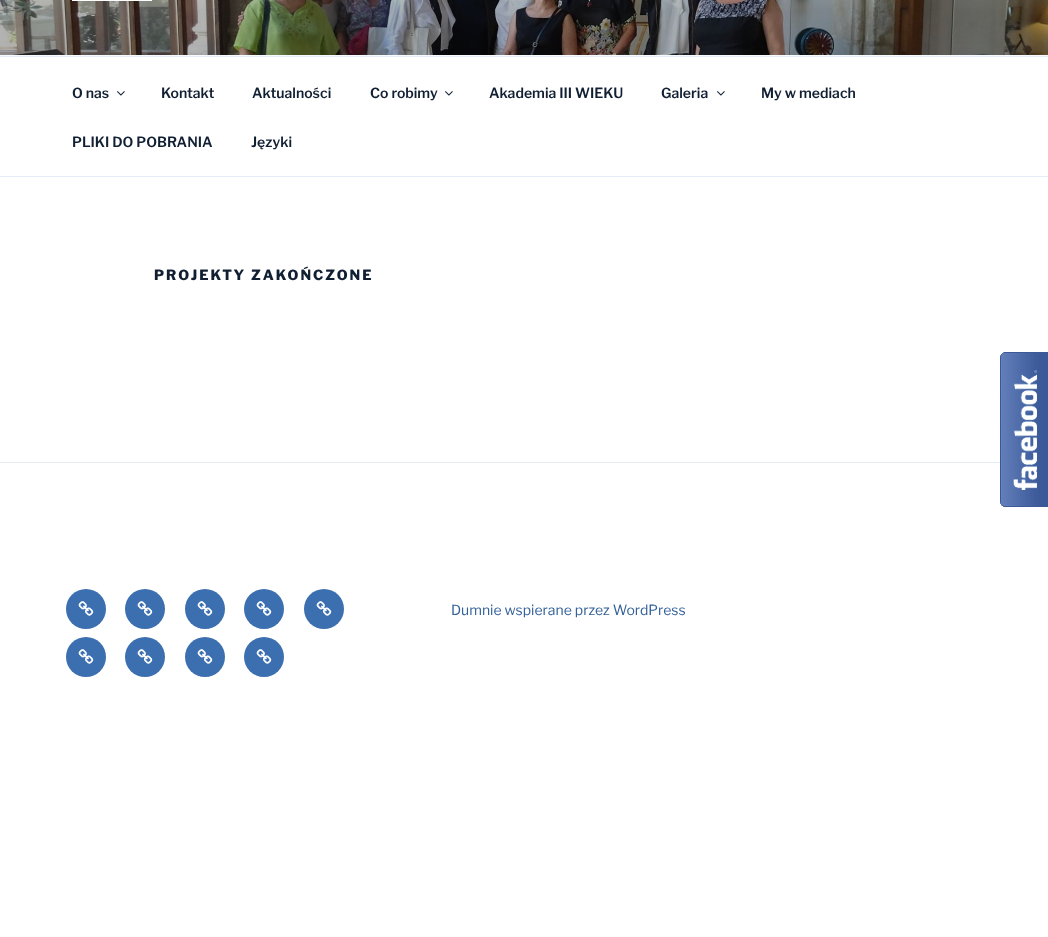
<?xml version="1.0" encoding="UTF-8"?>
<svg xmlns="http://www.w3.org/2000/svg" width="1048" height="937">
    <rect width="100%" height="100%" fill="#FFFFFF"/>
    <rect x="0" y="55" width="1048" height="1" fill="#F7FAFC"/>
    <image x="0" y="0" width="1048" height="55" href="img_01.png"/>
    <rect x="72" y="0" width="80" height="1" fill="#FDFDFD"/>
    <rect x="0" y="56" width="1048" height="1" fill="#E4ECF6"/>
    <rect x="0" y="176" width="1048" height="1" fill="#E4ECF6"/>
    <text x="72" y="98" font-family="'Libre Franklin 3'" font-size="14" font-weight="100" fill="#111F32">O nas</text>
    <image x="117" y="91" width="8" height="5" href="img_02.png"/>
    <text x="161" y="98" font-family="'Libre Franklin 3'" font-size="14" font-weight="100" fill="#111F32">Kontakt</text>
    <text x="252" y="98" font-family="'Libre Franklin 3'" font-size="14" font-weight="100" fill="#111F32">Aktualności</text>
    <text x="370" y="98" font-family="'Libre Franklin 3'" font-size="14" font-weight="100" fill="#111F32">Co robimy</text>
    <image x="445" y="91" width="8" height="5" href="img_02.png"/>
    <text x="489" y="98" font-family="'Libre Franklin 3'" font-size="14" font-weight="100" fill="#111F32">Akademia III WIEKU</text>
    <text x="661" y="98" font-family="'Libre Franklin 3'" font-size="14" font-weight="100" fill="#111F32">Galeria</text>
    <image x="717" y="91" width="8" height="5" href="img_02.png"/>
    <text x="761" y="98" font-family="'Libre Franklin 3'" font-size="14" font-weight="100" fill="#111F32">My w mediach</text>
    <text x="72" y="147" font-family="'Libre Franklin 3'" font-size="14" font-weight="100" fill="#111F32">PLIKI DO POBRANIA</text>
    <text x="251" y="147" font-family="'Libre Franklin 3'" font-size="14" font-weight="100" fill="#111F32">Języki</text>
    <text x="154" y="280" font-family="'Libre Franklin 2'" font-size="14" font-weight="100" letter-spacing="2" fill="#111F32">PROJEKTY ZAKOŃCZONE</text>
    <rect x="0" y="462" width="1000" height="1" fill="#E4ECF6"/>
    <circle cx="86" cy="609" r="20" fill="#3B6FB0"/>
    <image x="78" y="601" width="16" height="15" href="img_03.png"/>
    <circle cx="145" cy="609" r="20" fill="#3B6FB0"/>
    <image x="137" y="601" width="16" height="15" href="img_03.png"/>
    <circle cx="205" cy="609" r="20" fill="#3B6FB0"/>
    <image x="197" y="601" width="16" height="15" href="img_03.png"/>
    <circle cx="264" cy="609" r="20" fill="#3B6FB0"/>
    <image x="256" y="601" width="16" height="15" href="img_03.png"/>
    <circle cx="324" cy="609" r="20" fill="#3B6FB0"/>
    <image x="316" y="601" width="16" height="15" href="img_03.png"/>
    <circle cx="86" cy="657" r="20" fill="#3B6FB0"/>
    <image x="78" y="649" width="16" height="15" href="img_03.png"/>
    <circle cx="145" cy="657" r="20" fill="#3B6FB0"/>
    <image x="137" y="649" width="16" height="15" href="img_03.png"/>
    <circle cx="205" cy="657" r="20" fill="#3B6FB0"/>
    <image x="197" y="649" width="16" height="15" href="img_03.png"/>
    <circle cx="264" cy="657" r="20" fill="#3B6FB0"/>
    <image x="256" y="649" width="16" height="15" href="img_03.png"/>
    <text x="451" y="615" font-family="Libre Franklin" font-size="14" font-weight="100" fill="#336199">Dumnie wspierane przez WordPress</text>
    <image x="1000" y="352" width="48" height="155" href="img_04.png"/>
</svg>
